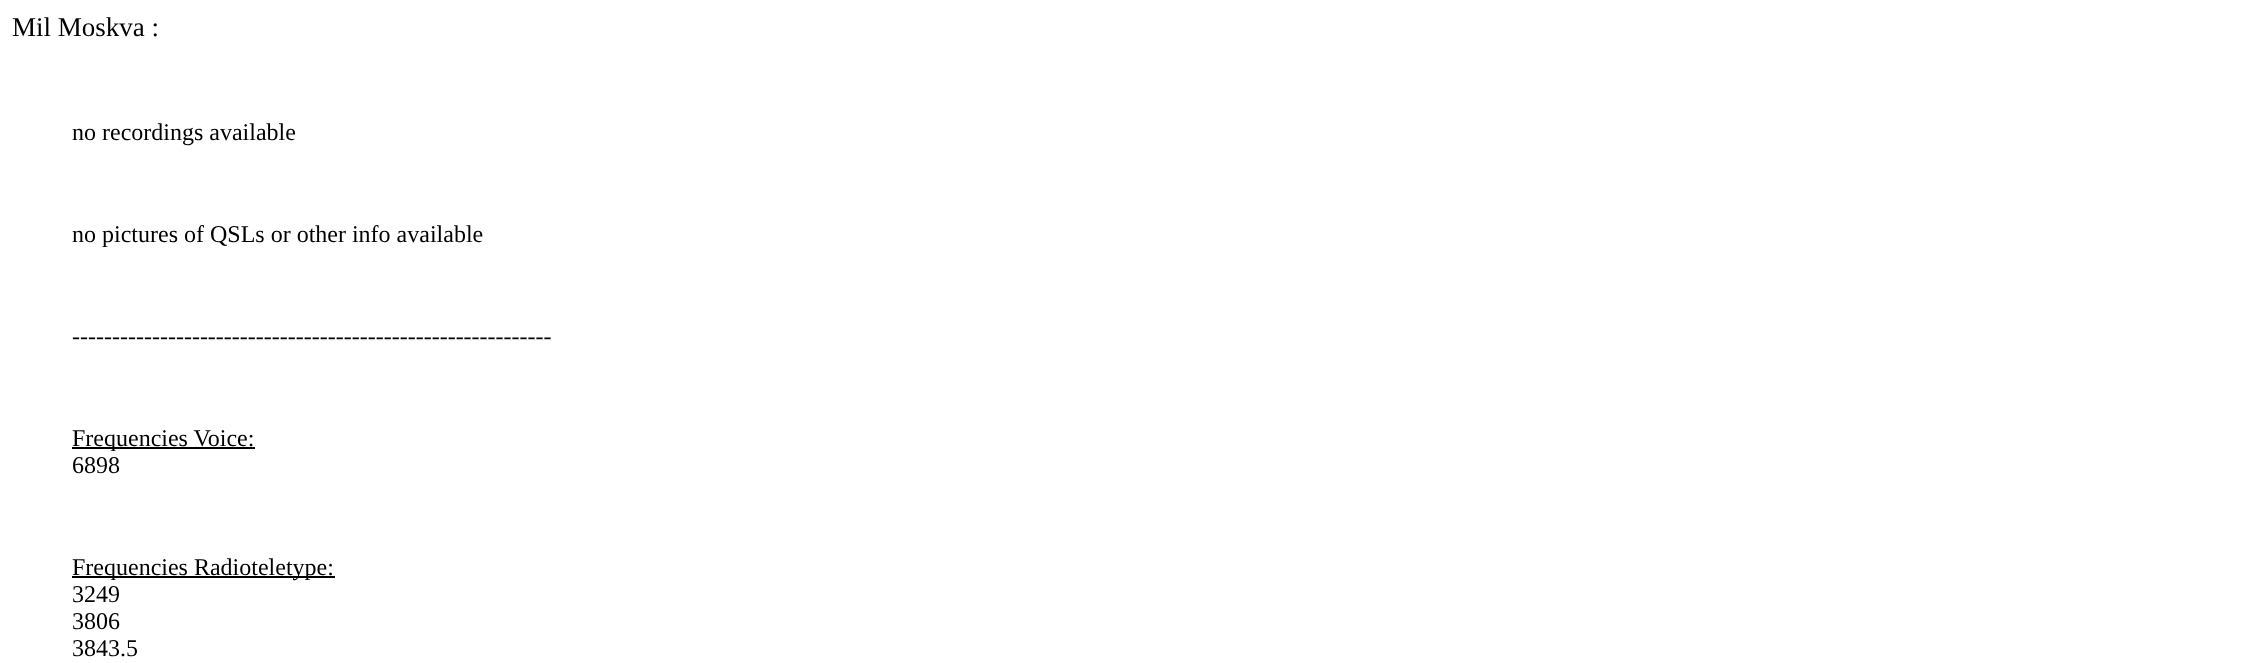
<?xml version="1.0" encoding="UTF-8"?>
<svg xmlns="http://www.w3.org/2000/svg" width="2256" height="663">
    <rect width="100%" height="100%" fill="#FFFFFF"/>
    <text x="12" y="36" font-family="Liberation Serif" font-size="27" fill="#000000">Mil Moskva :</text>
    <text x="72" y="140" font-family="Liberation Serif" font-size="24" fill="#000000">no recordings available</text>
    <text x="72" y="242" font-family="Liberation Serif" font-size="24" fill="#000000">no pictures of QSLs or other info available</text>
    <text x="72" y="344" font-family="Liberation Serif" font-size="24" fill="#000000">------------------------------------------------------------</text>
    <rect x="72" y="447" width="183" height="2" fill="#000000"/>
    <text font-family="Liberation Serif" font-size="24" fill="#000000">
        <tspan x="72" y="446">Frequencies Voice:</tspan>
        <tspan x="72" y="473">6898</tspan>
    </text>
    <rect x="72" y="576" width="263" height="2" fill="#000000"/>
    <text font-family="Liberation Serif" font-size="24" fill="#000000">
        <tspan x="72" y="575">Frequencies Radioteletype:</tspan>
        <tspan x="72" y="602">3249</tspan>
        <tspan x="72" y="629">3806</tspan>
        <tspan x="72" y="656">3843.5</tspan>
    </text>
</svg>
